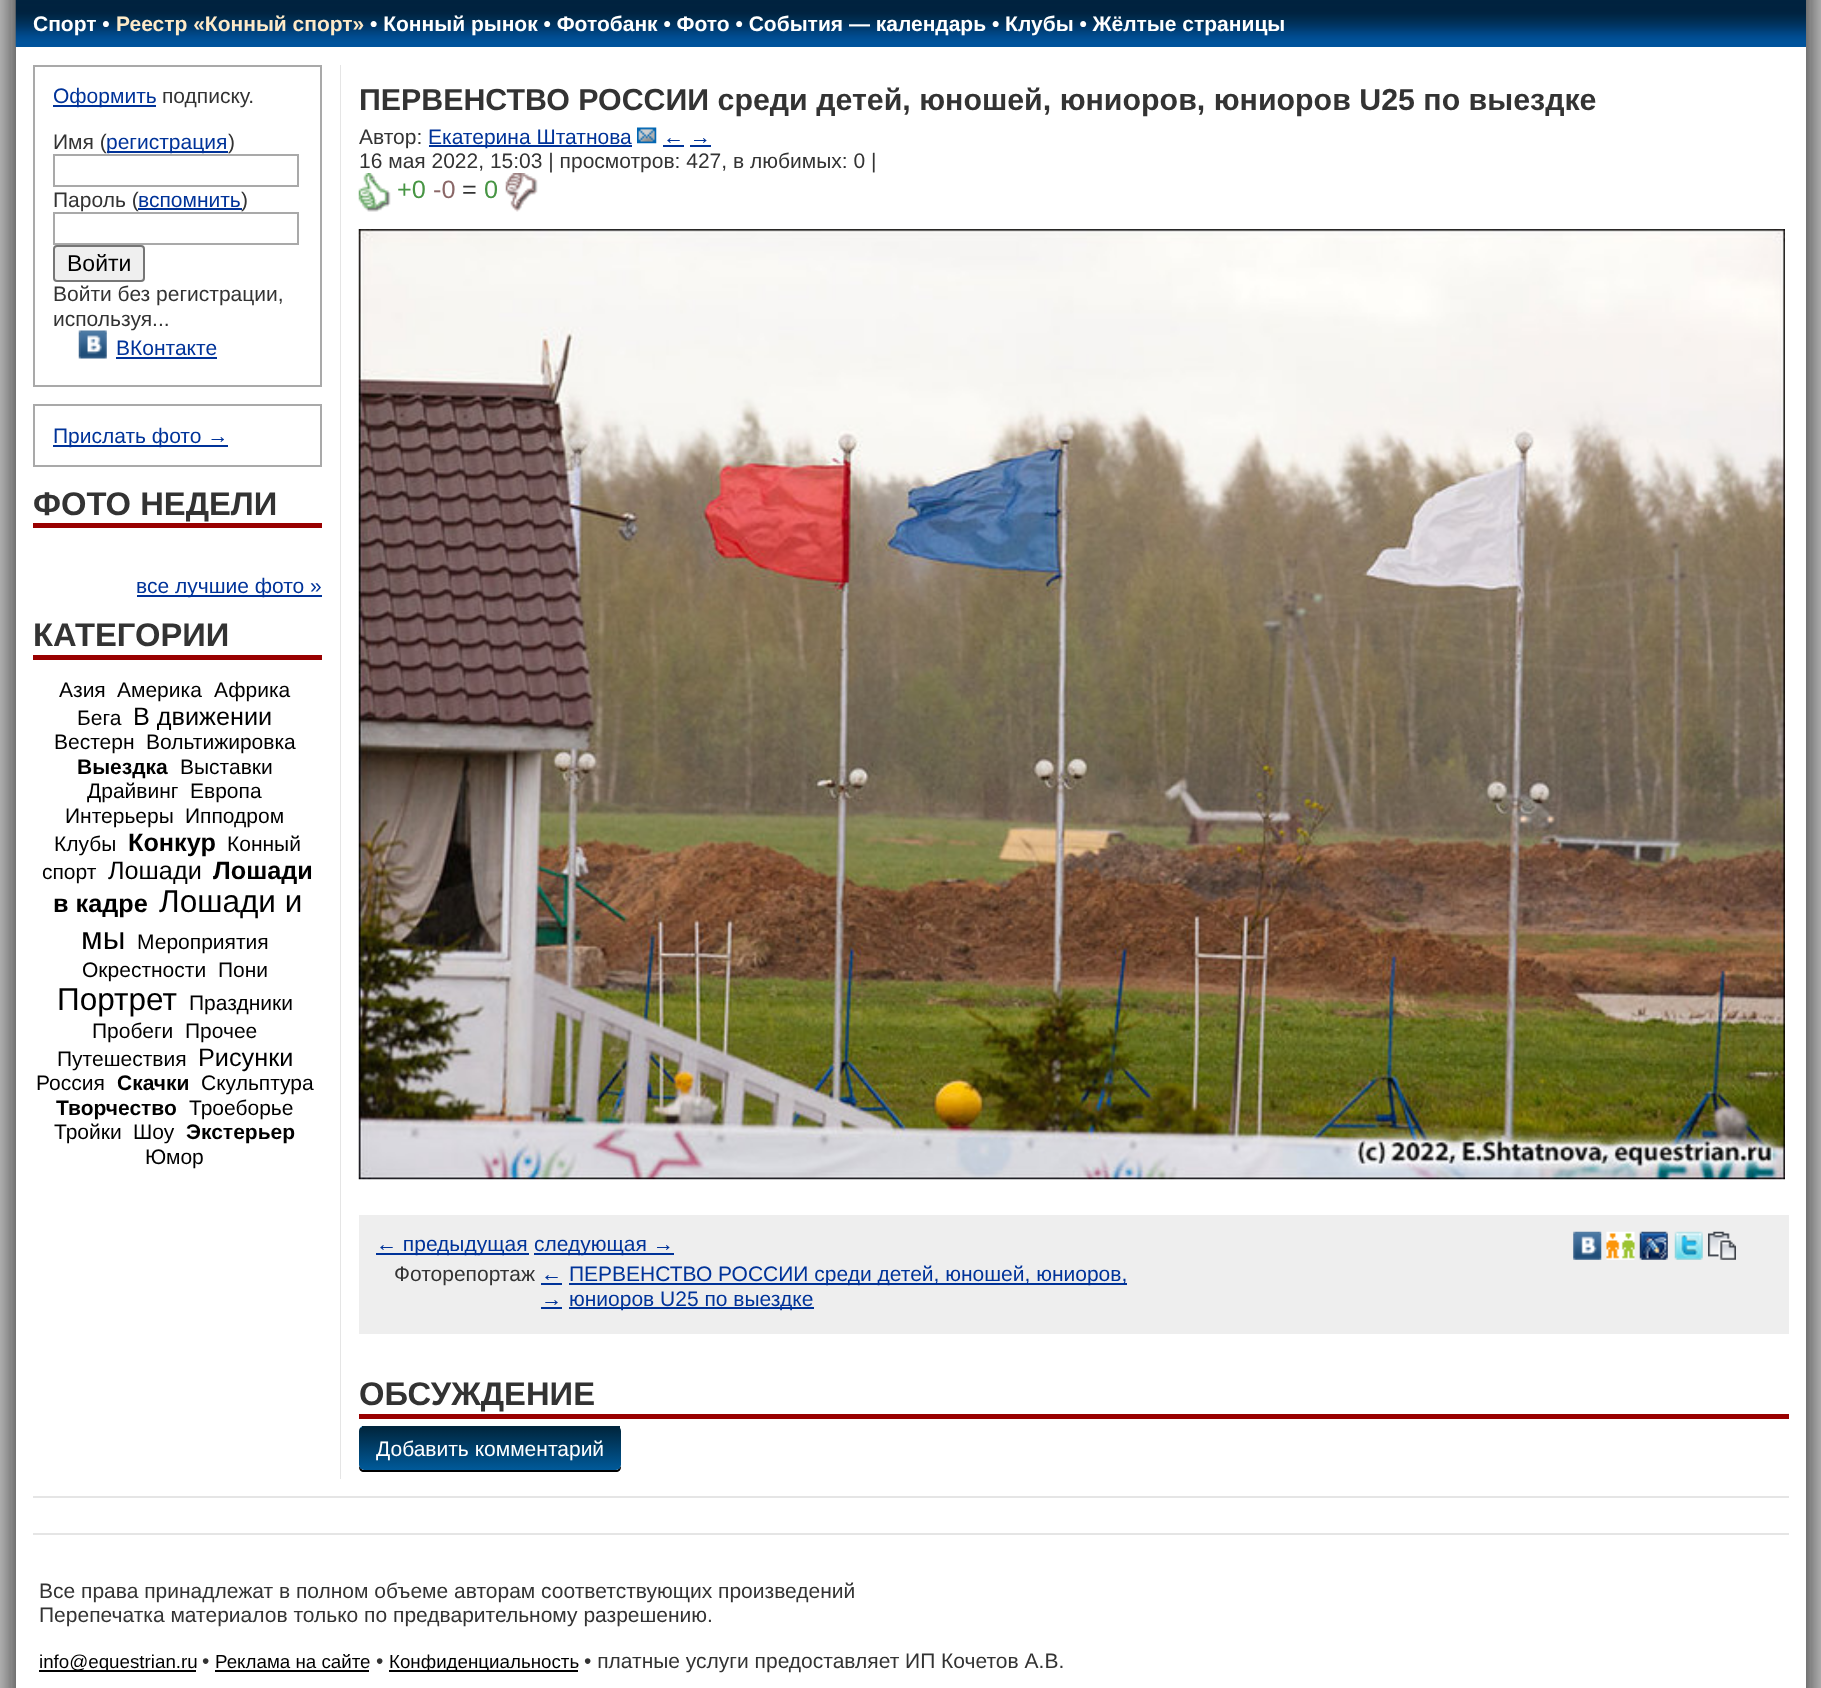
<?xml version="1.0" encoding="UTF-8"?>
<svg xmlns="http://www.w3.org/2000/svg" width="1821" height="1688">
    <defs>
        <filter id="blur1" x="-50%" y="-200%" width="200%" height="500%"><feGaussianBlur stdDeviation="15"/></filter>
        <clipPath id="clip1"><rect x="359" y="1426" width="262" height="44" rx="5"/></clipPath>
        <linearGradient id="g1" gradientUnits="userSpaceOnUse" x1="490" y1="1428" x2="490" y2="1470"><stop offset="0" stop-color="#00263E"/><stop offset="1" stop-color="#005A9A"/></linearGradient>
        <linearGradient id="g2" gradientUnits="userSpaceOnUse" x1="490" y1="1386" x2="490" y2="1428"><stop offset="0" stop-color="#00263E"/><stop offset="1" stop-color="#005A9A"/></linearGradient>
    </defs>
    <rect width="100%" height="100%" fill="#C0C0C0"/>
    <rect x="16" y="-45" width="1790" height="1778" fill="#212121" filter="url(#blur1)"/>
    <image x="15" y="0" width="1791" height="47" href="img_01.png"/>
    <text x="33" y="31" font-family="Liberation Sans" font-size="21" font-weight="700" fill="#FFFFFF">Спорт •</text>
    <text x="116" y="31" font-family="Liberation Sans" font-size="21" font-weight="700" fill="#FEEAC7">Реестр «Конный спорт»</text>
    <text x="370" y="31" font-family="Liberation Sans" font-size="21" font-weight="700" fill="#FFFFFF">• Конный рынок • Фотобанк • Фото • События — календарь • Клубы • Жёлтые страницы</text>
    <rect x="16" y="47" width="1790" height="1641" fill="#FFFFFF"/>
    <rect x="340" y="65" width="1" height="1414" fill="#E5E5E5"/>
    <rect x="34" y="66" width="287" height="320" fill="none" stroke="#A9A9A9" stroke-width="2"/>
    <rect x="53" y="105" width="103" height="2" fill="#003399"/>
    <text x="53" y="103" font-family="Liberation Sans" font-size="21" fill="#003399">Оформить</text>
    <text x="162" y="103" font-family="Liberation Sans" font-size="21" fill="#333333">подписку.</text>
    <text x="53" y="149" font-family="Liberation Sans" font-size="21" fill="#333333">Имя (</text>
    <rect x="107" y="151" width="121" height="2" fill="#003399"/>
    <text x="106" y="149" font-family="Liberation Sans" font-size="21" fill="#003399">регистрация</text>
    <text x="228" y="149" font-family="Liberation Sans" font-size="21" fill="#333333">)</text>
    <rect x="54" y="155" width="244" height="31" fill="none" stroke="#A9A9A9" stroke-width="2"/>
    <text x="53" y="207" font-family="Liberation Sans" font-size="21" fill="#333333">Пароль (</text>
    <text x="138" y="207" font-family="Liberation Sans" font-size="21" fill="#003399">вспомнить</text>
    <rect x="138" y="208" width="104" height="2" fill="#003399"/>
    <text x="241" y="207" font-family="Liberation Sans" font-size="21" fill="#333333">)</text>
    <rect x="54" y="213" width="244" height="31" fill="none" stroke="#A9A9A9" stroke-width="2"/>
    <rect x="54" y="246" width="90" height="35" rx="3" fill="#EFEFEF" stroke="#767676" stroke-width="2"/>
    <text x="67" y="271" font-family="Liberation Sans" font-size="23" fill="#000000">Войти</text>
    <text font-family="Liberation Sans" font-size="21" fill="#333333">
        <tspan x="53" y="301">Войти без регистрации,</tspan>
        <tspan x="53" y="326">используя...</tspan>
    </text>
    <image x="78" y="330" width="29" height="29" href="img_02.png"/>
    <text x="116" y="355" font-family="Liberation Sans" font-size="21" fill="#003399">ВКонтакте</text>
    <rect x="116" y="357" width="101" height="2" fill="#003399"/>
    <rect x="34" y="405" width="287" height="61" fill="none" stroke="#A9A9A9" stroke-width="2"/>
    <rect x="53" y="445" width="175" height="2" fill="#003399"/>
    <text x="53" y="443" font-family="Liberation Sans" font-size="21" fill="#003399">Прислать фото →</text>
    <rect x="33" y="523" width="289" height="5" fill="#990000"/>
    <text x="33" y="515" font-family="Liberation Sans" font-size="32.75" font-weight="700" fill="#333333">ФОТО НЕДЕЛИ</text>
    <rect x="137" y="595" width="185" height="2" fill="#003399"/>
    <text x="136" y="593" font-family="Liberation Sans" font-size="21" fill="#003399">все лучшие фото »</text>
    <rect x="33" y="655" width="289" height="5" fill="#990000"/>
    <text x="33" y="646" font-family="Liberation Sans" font-size="32.75" font-weight="700" fill="#333333">КАТЕГОРИИ</text>
    <text x="59" y="697" font-family="Liberation Sans" font-size="21" fill="#000000">Азия</text>
    <text x="117" y="697" font-family="Liberation Sans" font-size="21" fill="#000000">Америка</text>
    <text x="214" y="697" font-family="Liberation Sans" font-size="21" fill="#000000">Африка</text>
    <text x="77" y="725" font-family="Liberation Sans" font-size="21" fill="#000000">Бега</text>
    <text x="133" y="725" font-family="Liberation Sans" font-size="25.25" fill="#000000">В движении</text>
    <text x="54" y="749" font-family="Liberation Sans" font-size="21" fill="#000000">Вестерн</text>
    <text x="146" y="749" font-family="Liberation Sans" font-size="21" fill="#000000">Вольтижировка</text>
    <text x="77" y="774" font-family="Liberation Sans" font-size="21" font-weight="700" fill="#000000">Выездка</text>
    <text x="180" y="774" font-family="Liberation Sans" font-size="21" fill="#000000">Выставки</text>
    <text x="87" y="798" font-family="Liberation Sans" font-size="21" fill="#000000">Драйвинг</text>
    <text x="190" y="798" font-family="Liberation Sans" font-size="21" fill="#000000">Европа</text>
    <text x="65" y="823" font-family="Liberation Sans" font-size="21" fill="#000000">Интерьеры</text>
    <text x="185" y="823" font-family="Liberation Sans" font-size="21" fill="#000000">Ипподром</text>
    <text x="54" y="851" font-family="Liberation Sans" font-size="21" fill="#000000">Клубы</text>
    <text x="128" y="851" font-family="Liberation Sans" font-size="25.25" font-weight="700" fill="#000000">Конкур</text>
    <text x="227" y="851" font-family="Liberation Sans" font-size="21" fill="#000000">Конный</text>
    <text x="42" y="879" font-family="Liberation Sans" font-size="21" fill="#000000">спорт</text>
    <text x="108" y="879" font-family="Liberation Sans" font-size="25.25" fill="#000000">Лошади</text>
    <text x="213" y="879" font-family="Liberation Sans" font-size="25.25" font-weight="700" fill="#000000">Лошади</text>
    <text x="53" y="912" font-family="Liberation Sans" font-size="25.25" font-weight="700" fill="#000000">в кадре</text>
    <text x="159" y="912" font-family="Liberation Sans" font-size="31.5" fill="#000000">Лошади и</text>
    <text x="81" y="949" font-family="Liberation Sans" font-size="31.5" fill="#000000">мы</text>
    <text x="137" y="949" font-family="Liberation Sans" font-size="21" fill="#000000">Мероприятия</text>
    <text x="82" y="977" font-family="Liberation Sans" font-size="21" fill="#000000">Окрестности</text>
    <text x="218" y="977" font-family="Liberation Sans" font-size="21" fill="#000000">Пони</text>
    <text x="57" y="1010" font-family="Liberation Sans" font-size="31.5" fill="#000000">Портрет</text>
    <text x="189" y="1010" font-family="Liberation Sans" font-size="21" fill="#000000">Праздники</text>
    <text x="92" y="1038" font-family="Liberation Sans" font-size="21" fill="#000000">Пробеги</text>
    <text x="185" y="1038" font-family="Liberation Sans" font-size="21" fill="#000000">Прочее</text>
    <text x="57" y="1066" font-family="Liberation Sans" font-size="21" fill="#000000">Путешествия</text>
    <text x="198" y="1066" font-family="Liberation Sans" font-size="25.25" fill="#000000">Рисунки</text>
    <text x="36" y="1090" font-family="Liberation Sans" font-size="21" fill="#000000">Россия</text>
    <text x="117" y="1090" font-family="Liberation Sans" font-size="21" font-weight="700" fill="#000000">Скачки</text>
    <text x="201" y="1090" font-family="Liberation Sans" font-size="21" fill="#000000">Скульптура</text>
    <text x="56" y="1115" font-family="Liberation Sans" font-size="21" font-weight="700" fill="#000000">Творчество</text>
    <text x="189" y="1115" font-family="Liberation Sans" font-size="21" fill="#000000">Троеборье</text>
    <text x="54" y="1139" font-family="Liberation Sans" font-size="21" fill="#000000">Тройки</text>
    <text x="133" y="1139" font-family="Liberation Sans" font-size="21" fill="#000000">Шоу</text>
    <text x="186" y="1139" font-family="Liberation Sans" font-size="21" font-weight="700" fill="#000000">Экстерьер</text>
    <text x="145" y="1164" font-family="Liberation Sans" font-size="21" fill="#000000">Юмор</text>
    <text x="359" y="110" font-family="Liberation Sans" font-size="30.35" font-weight="700" fill="#333333">ПЕРВЕНСТВО РОССИИ среди детей, юношей, юниоров, юниоров U25 по выездке</text>
    <text x="359" y="144" font-family="Liberation Sans" font-size="21" fill="#333333">Автор:</text>
    <rect x="429" y="145" width="203" height="2" fill="#003399"/>
    <text x="428" y="144" font-family="Liberation Sans" font-size="21" fill="#003399">Екатерина Штатнова</text>
    <image x="637" y="127" width="20" height="17" href="img_03.png"/>
    <text x="663" y="144" font-family="Liberation Sans" font-size="21" fill="#003399">← →</text>
    <rect x="663" y="145" width="21" height="2" fill="#003399"/>
    <rect x="690" y="145" width="21" height="2" fill="#003399"/>
    <text x="359" y="168" font-family="Liberation Sans" font-size="21" fill="#333333">16 мая 2022, 15:03 | просмотров: 427, в любимых: 0 |</text>
    <image x="358" y="173" width="33" height="39" href="img_04.png"/>
    <text x="397" y="198" font-family="Liberation Sans" font-size="25.25" fill="#479544">+0</text>
    <text x="433" y="198" font-family="Liberation Sans" font-size="25.25" fill="#8A6767">-0</text>
    <text x="462" y="198" font-family="Liberation Sans" font-size="25.25" fill="#333333">=</text>
    <text x="484" y="198" font-family="Liberation Sans" font-size="25.25" fill="#479544">0</text>
    <image x="505" y="173" width="33" height="39" href="img_05.png"/>
    <image x="358" y="229" width="1427" height="951" href="img_06.png"/>
    <rect x="359" y="1215" width="1430" height="119" fill="#EEEEEE"/>
    <rect x="376" y="1253" width="153" height="2" fill="#003399"/>
    <text x="376" y="1251" font-family="Liberation Sans" font-size="21" fill="#003399">← предыдущая</text>
    <rect x="534" y="1253" width="140" height="2" fill="#003399"/>
    <text x="534" y="1251" font-family="Liberation Sans" font-size="21" fill="#003399">следующая →</text>
    <image x="1573" y="1231" width="29" height="29" href="img_07.png"/>
    <image x="1606" y="1231" width="29" height="29" href="img_08.png"/>
    <image x="1639" y="1231" width="29" height="29" href="img_09.png"/>
    <image x="1674" y="1231" width="29" height="29" href="img_10.png"/>
    <image x="1708" y="1231" width="28" height="29" href="img_11.png"/>
    <text x="394" y="1281" font-family="Liberation Sans" font-size="21" fill="#333333">Фоторепортаж</text>
    <text x="541" y="1281" font-family="Liberation Sans" font-size="21" fill="#003399">←</text>
    <rect x="541" y="1283" width="21" height="2" fill="#003399"/>
    <text x="541" y="1306" font-family="Liberation Sans" font-size="21" fill="#003399">→</text>
    <rect x="541" y="1307" width="21" height="2" fill="#003399"/>
    <rect x="569" y="1283" width="558" height="2" fill="#003399"/>
    <text x="569" y="1281" font-family="Liberation Sans" font-size="21" fill="#003399">ПЕРВЕНСТВО РОССИИ среди детей, юношей, юниоров,</text>
    <rect x="569" y="1307" width="245" height="2" fill="#003399"/>
    <text x="569" y="1306" font-family="Liberation Sans" font-size="21" fill="#003399">юниоров U25 по выездке</text>
    <rect x="359" y="1414" width="1430" height="5" fill="#990000"/>
    <text x="359" y="1405" font-family="Liberation Sans" font-size="32.75" font-weight="700" fill="#333333">ОБСУЖДЕНИЕ</text>
    <path d="M 359 1466 V 1467 C 359 1470 361 1472 364 1472 H 616 C 619 1472 621 1470 621 1467 V 1466 C 620 1468 618 1470 616 1470 H 364 C 362 1470 360 1468 359 1466 Z" fill="#000000"/>
    <g clip-path="url(#clip1)">
        <path d="M 359 1428 H 621 V 1465 C 621 1468 619 1470 616 1470 H 364 C 361 1470 359 1468 359 1465 Z" fill="url(#g1)"/>
    </g>
    <text x="376" y="1456" font-family="Liberation Sans" font-size="21" fill="#FFFFFF">Добавить комментарий</text>
    <g clip-path="url(#clip1)">
        <rect x="359" y="1426" width="3" height="2" fill="url(#g2)"/>
    </g>
    <rect x="362" y="1426" width="258" height="2" fill="#00263E"/>
    <rect x="33" y="1496" width="1756" height="2" fill="#E5E5E5"/>
    <rect x="33" y="1533" width="1756" height="2" fill="#E5E5E5"/>
    <text font-family="Liberation Sans" font-size="21" fill="#333333">
        <tspan x="39" y="1598">Все права принадлежат в полном объеме авторам соответствующих произведений</tspan>
        <tspan x="39" y="1622">Перепечатка материалов только по предварительному разрешению.</tspan>
    </text>
    <rect x="39" y="1670" width="157" height="2" fill="#000000"/>
    <text x="39" y="1668" font-family="Liberation Sans" font-size="18.75" fill="#000000">info@equestrian.ru</text>
    <text x="202" y="1668" font-family="Liberation Sans" font-size="21" fill="#333333">•</text>
    <text x="215" y="1668" font-family="Liberation Sans" font-size="18.75" fill="#000000">Реклама на сайте</text>
    <rect x="215" y="1670" width="154" height="2" fill="#000000"/>
    <text x="376" y="1668" font-family="Liberation Sans" font-size="21" fill="#333333">•</text>
    <rect x="389" y="1670" width="189" height="2" fill="#000000"/>
    <text x="389" y="1668" font-family="Liberation Sans" font-size="18.75" fill="#000000">Конфиденциальность</text>
    <text x="584" y="1668" font-family="Liberation Sans" font-size="21" fill="#333333">• платные услуги предоставляет ИП Кочетов А.В.</text>
</svg>
